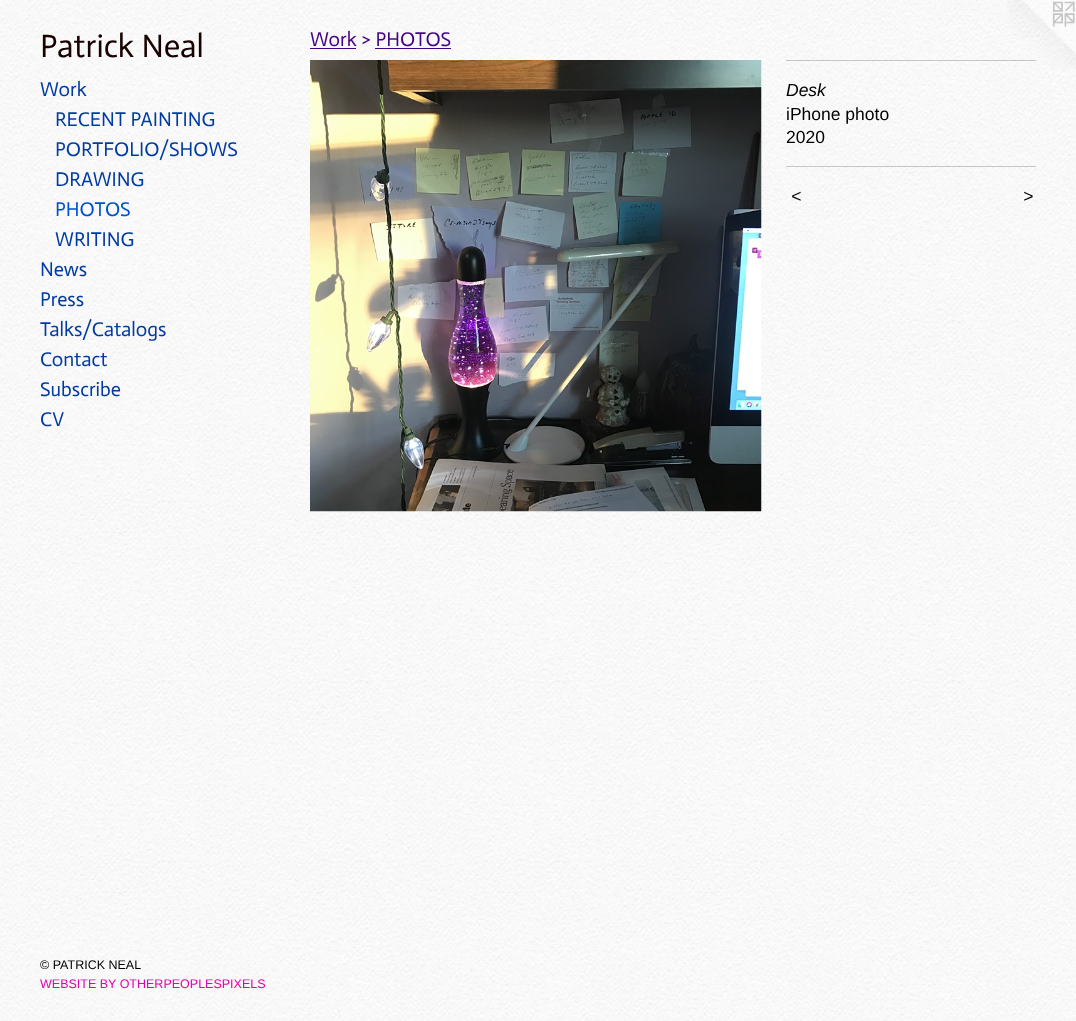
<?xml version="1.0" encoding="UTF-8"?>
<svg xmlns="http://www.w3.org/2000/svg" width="1076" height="1021">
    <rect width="100%" height="100%" fill="#FFFFFF"/>
    <image x="0" y="0" width="1076" height="1021" href="img_01.png"/>
    <text x="40" y="57" font-family="Actor" font-size="32.5" fill="#180101">Patrick Neal</text>
    <text x="40" y="96" font-family="Actor" font-size="20" fill="#003BA2">Work</text>
    <text font-family="Actor" font-size="20" fill="#003BA2">
        <tspan x="55" y="126">RECENT PAINTING</tspan>
        <tspan x="55" y="156">PORTFOLIO/SHOWS</tspan>
        <tspan x="55" y="186">DRAWING</tspan>
    </text>
    <text x="55" y="216" font-family="Actor" font-size="20" fill="#004ED5">PHOTOS</text>
    <text x="55" y="246" font-family="Actor" font-size="20" fill="#003BA2">WRITING</text>
    <text font-family="Actor" font-size="20" fill="#003BA2">
        <tspan x="40" y="276">News</tspan>
        <tspan x="40" y="306">Press</tspan>
        <tspan x="40" y="336">Talks/Catalogs</tspan>
        <tspan x="40" y="366">Contact</tspan>
        <tspan x="40" y="396">Subscribe</tspan>
        <tspan x="40" y="426">CV</tspan>
    </text>
    <text x="40" y="969" font-family="Liberation Sans" font-size="12.5" fill="#000000">© PATRICK NEAL</text>
    <text x="40" y="988" font-family="Liberation Sans" font-size="12.5" fill="#E302AB">WEBSITE BY OTHERPEOPLESPIXELS</text>
    <text x="310" y="46" font-family="Actor" font-size="20" fill="#430386">Work &gt; PHOTOS</text>
    <rect x="310" y="48" width="46" height="1" fill="#430386"/>
    <rect x="375" y="48" width="76" height="1" fill="#430386"/>
    <image x="310" y="60" width="452" height="452" href="img_02.png"/>
    <image x="1007" y="0" width="69" height="69" href="img_03.png"/>
    <rect x="786" y="60" width="250" height="1" fill="#000000" fill-opacity="0.2"/>
    <text x="786" y="96" font-family="Liberation Sans" font-size="17.5" font-style="italic" fill="#000000">Desk</text>
    <text font-family="Liberation Sans" font-size="17.5" fill="#000000">
        <tspan x="786" y="120">iPhone photo</tspan>
        <tspan x="786" y="143">2020</tspan>
    </text>
    <rect x="786" y="166" width="250" height="1" fill="#000000" fill-opacity="0.2"/>
    <text x="791" y="202" font-family="Liberation Sans" font-size="17.5" font-style="italic" letter-spacing="1" fill="#000000">&lt;</text>
    <text x="1023" y="202" font-family="Liberation Sans" font-size="17.5" font-style="italic" letter-spacing="1" fill="#000000">&gt;</text>
</svg>
